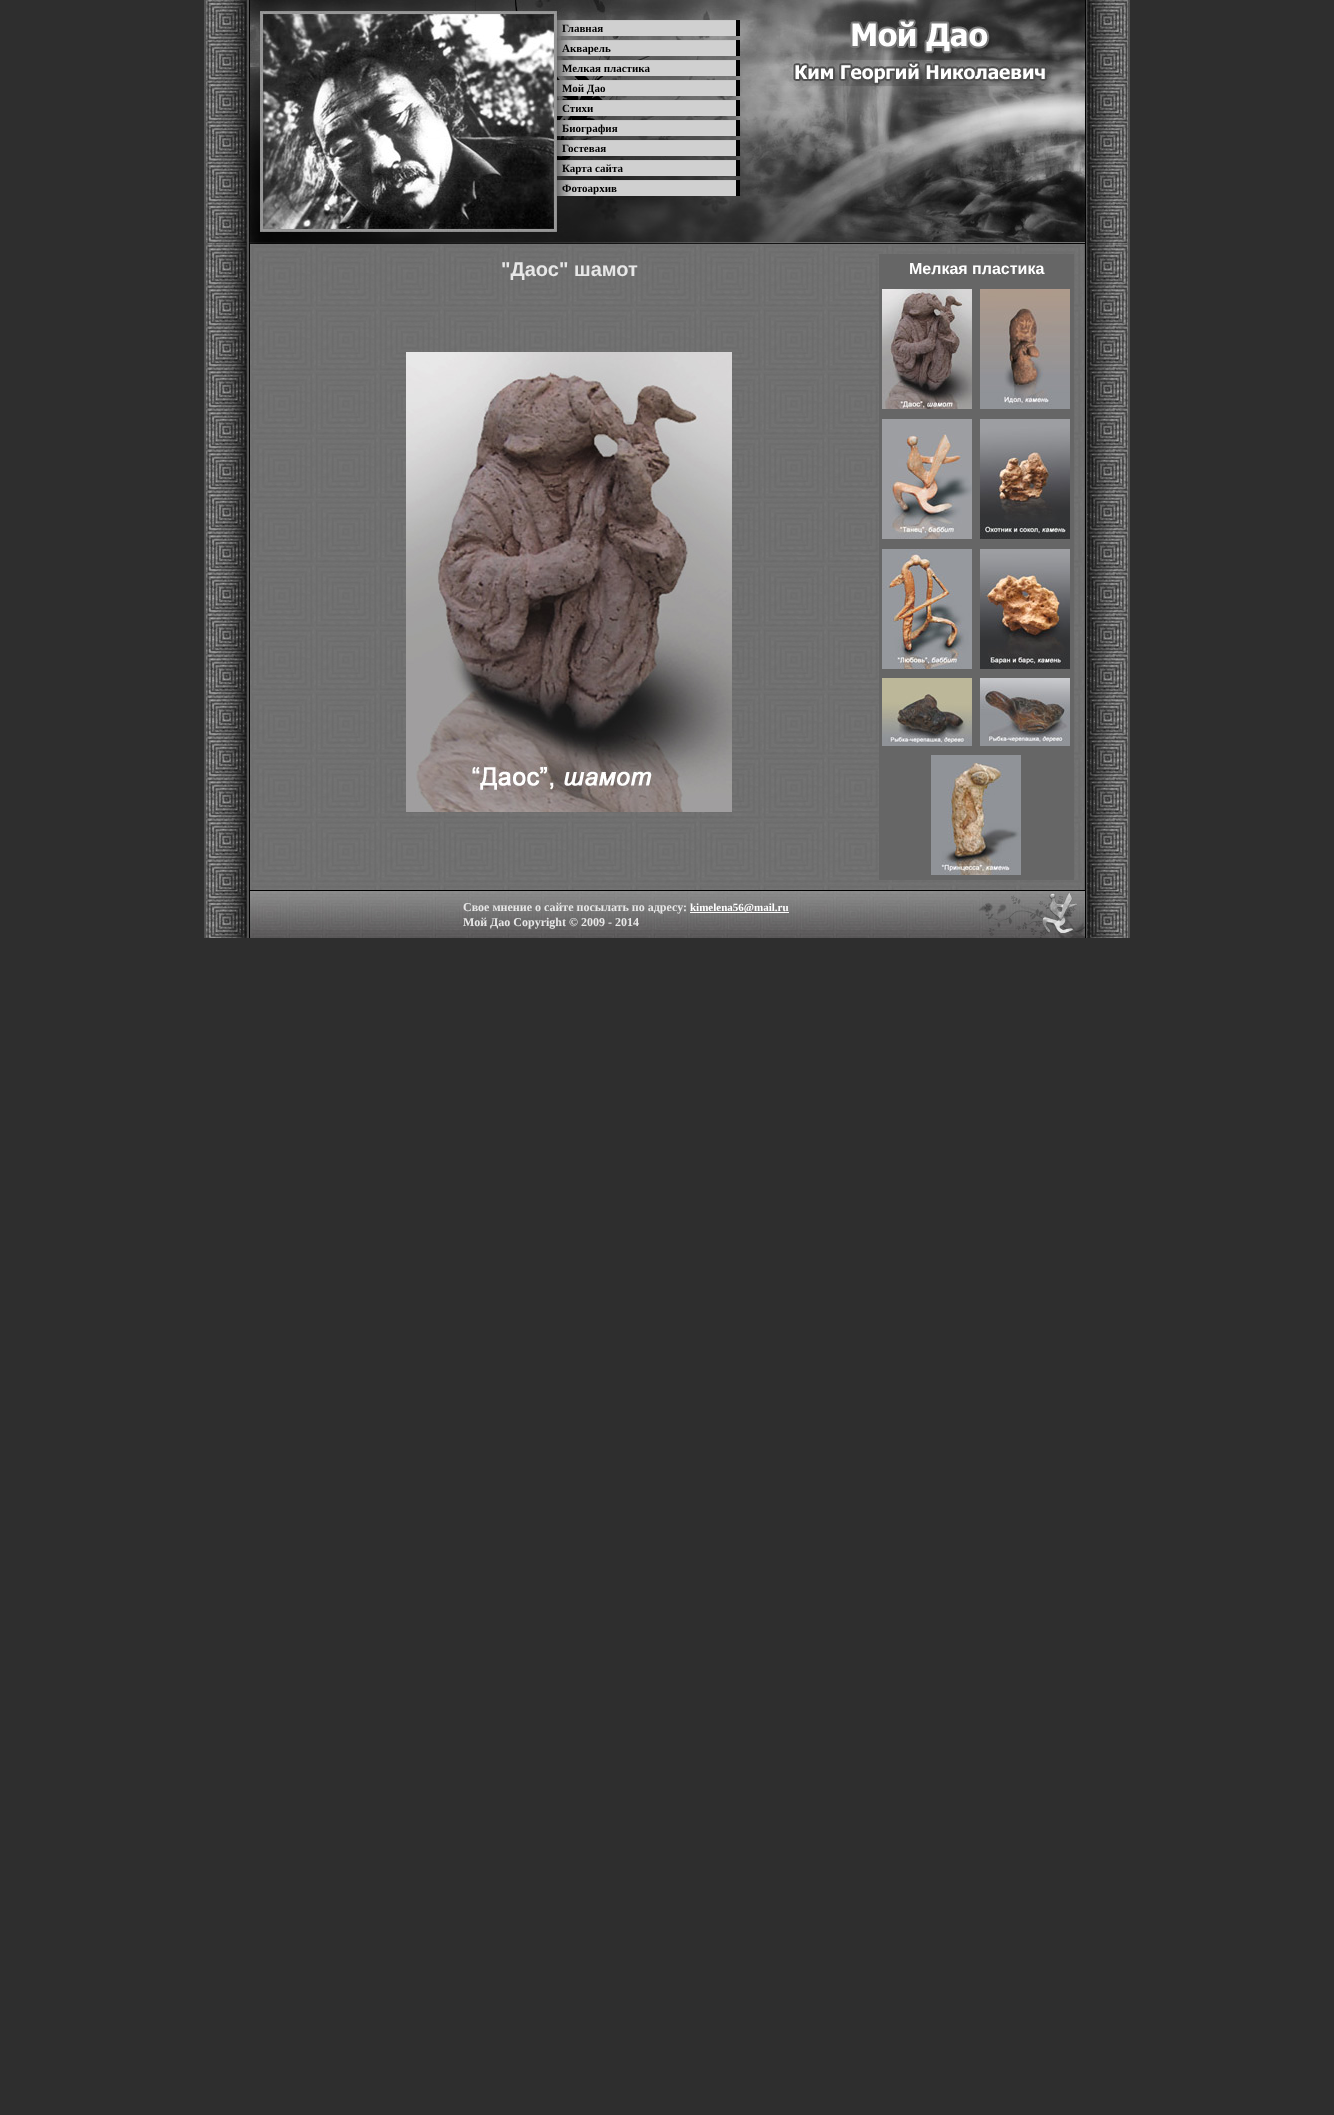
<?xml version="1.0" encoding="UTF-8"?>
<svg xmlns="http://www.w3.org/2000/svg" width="1334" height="2115">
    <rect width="100%" height="100%" fill="#2E2E2E"/>
    <image x="204" y="244" width="926" height="694" href="img_01.png"/>
    <image x="204" y="0" width="926" height="244" href="img_02.png"/>
    <image x="260" y="11" width="297" height="221" href="img_03.png"/>
    <image x="557" y="20" width="183" height="16" href="img_04.png"/>
    <text x="562" y="32" font-family="Liberation Serif" font-size="11" font-weight="700" fill="#000000">Главная</text>
    <image x="557" y="40" width="183" height="16" href="img_04.png"/>
    <text x="562" y="52" font-family="Liberation Serif" font-size="11" font-weight="700" fill="#000000">Акварель</text>
    <image x="557" y="60" width="183" height="16" href="img_04.png"/>
    <text x="562" y="72" font-family="Liberation Serif" font-size="11" font-weight="700" fill="#000000">Мелкая пластика</text>
    <image x="557" y="80" width="183" height="16" href="img_04.png"/>
    <text x="562" y="92" font-family="Liberation Serif" font-size="11" font-weight="700" fill="#000000">Мой Дао</text>
    <image x="557" y="100" width="183" height="16" href="img_04.png"/>
    <text x="562" y="112" font-family="Liberation Serif" font-size="11" font-weight="700" fill="#000000">Стихи</text>
    <image x="557" y="120" width="183" height="16" href="img_04.png"/>
    <text x="562" y="132" font-family="Liberation Serif" font-size="11" font-weight="700" fill="#000000">Биография</text>
    <image x="557" y="140" width="183" height="16" href="img_04.png"/>
    <text x="562" y="152" font-family="Liberation Serif" font-size="11" font-weight="700" fill="#000000">Гостевая</text>
    <image x="557" y="160" width="183" height="16" href="img_04.png"/>
    <text x="562" y="172" font-family="Liberation Serif" font-size="11" font-weight="700" fill="#000000">Карта сайта</text>
    <image x="557" y="180" width="183" height="16" href="img_04.png"/>
    <text x="562" y="192" font-family="Liberation Serif" font-size="11" font-weight="700" fill="#000000">Фотоархив</text>
    <image x="250" y="244" width="834" height="646" href="img_05.png"/>
    <text x="501" y="276" font-family="Liberation Sans" font-size="20" font-weight="700" fill="#E7E7E7">"Даос" шамот</text>
    <rect x="879" y="254" width="195" height="30" fill="#666666"/>
    <text x="909" y="274" font-family="Liberation Sans" font-size="16" font-weight="700" fill="#FFFFFF">Мелкая пластика</text>
    <rect x="879" y="284" width="195" height="130" fill="#666666"/>
    <image x="882" y="289" width="90" height="120" href="img_06.png"/>
    <image x="406" y="352" width="326" height="460" href="img_07.png"/>
    <image x="980" y="289" width="90" height="120" href="img_08.png"/>
    <rect x="879" y="414" width="195" height="130" fill="#666666"/>
    <image x="882" y="419" width="90" height="120" href="img_09.png"/>
    <image x="980" y="419" width="90" height="120" href="img_10.png"/>
    <rect x="879" y="544" width="195" height="130" fill="#666666"/>
    <image x="882" y="549" width="90" height="120" href="img_11.png"/>
    <image x="980" y="549" width="90" height="120" href="img_12.png"/>
    <rect x="879" y="674" width="195" height="206" fill="#666666"/>
    <image x="882" y="678" width="90" height="68" href="img_13.png"/>
    <image x="980" y="678" width="90" height="68" href="img_14.png"/>
    <image x="931" y="755" width="90" height="120" href="img_15.png"/>
    <image x="206" y="890" width="922" height="48" href="img_16.png"/>
    <text x="463" y="911" font-family="Liberation Serif" font-size="12" font-weight="700" fill="#E7E7E7">Свое мнение о сайте посылать по адресу:</text>
    <rect x="690" y="912" width="99" height="1" fill="#FFFFFF"/>
    <text x="690" y="911" font-family="Liberation Serif" font-size="11" font-weight="700" fill="#FFFFFF">kimelena56@mail.ru</text>
    <text x="463" y="926" font-family="Liberation Serif" font-size="12" font-weight="700" fill="#E7E7E7">Мой Дао Copyright © 2009 - 2014</text>
</svg>
